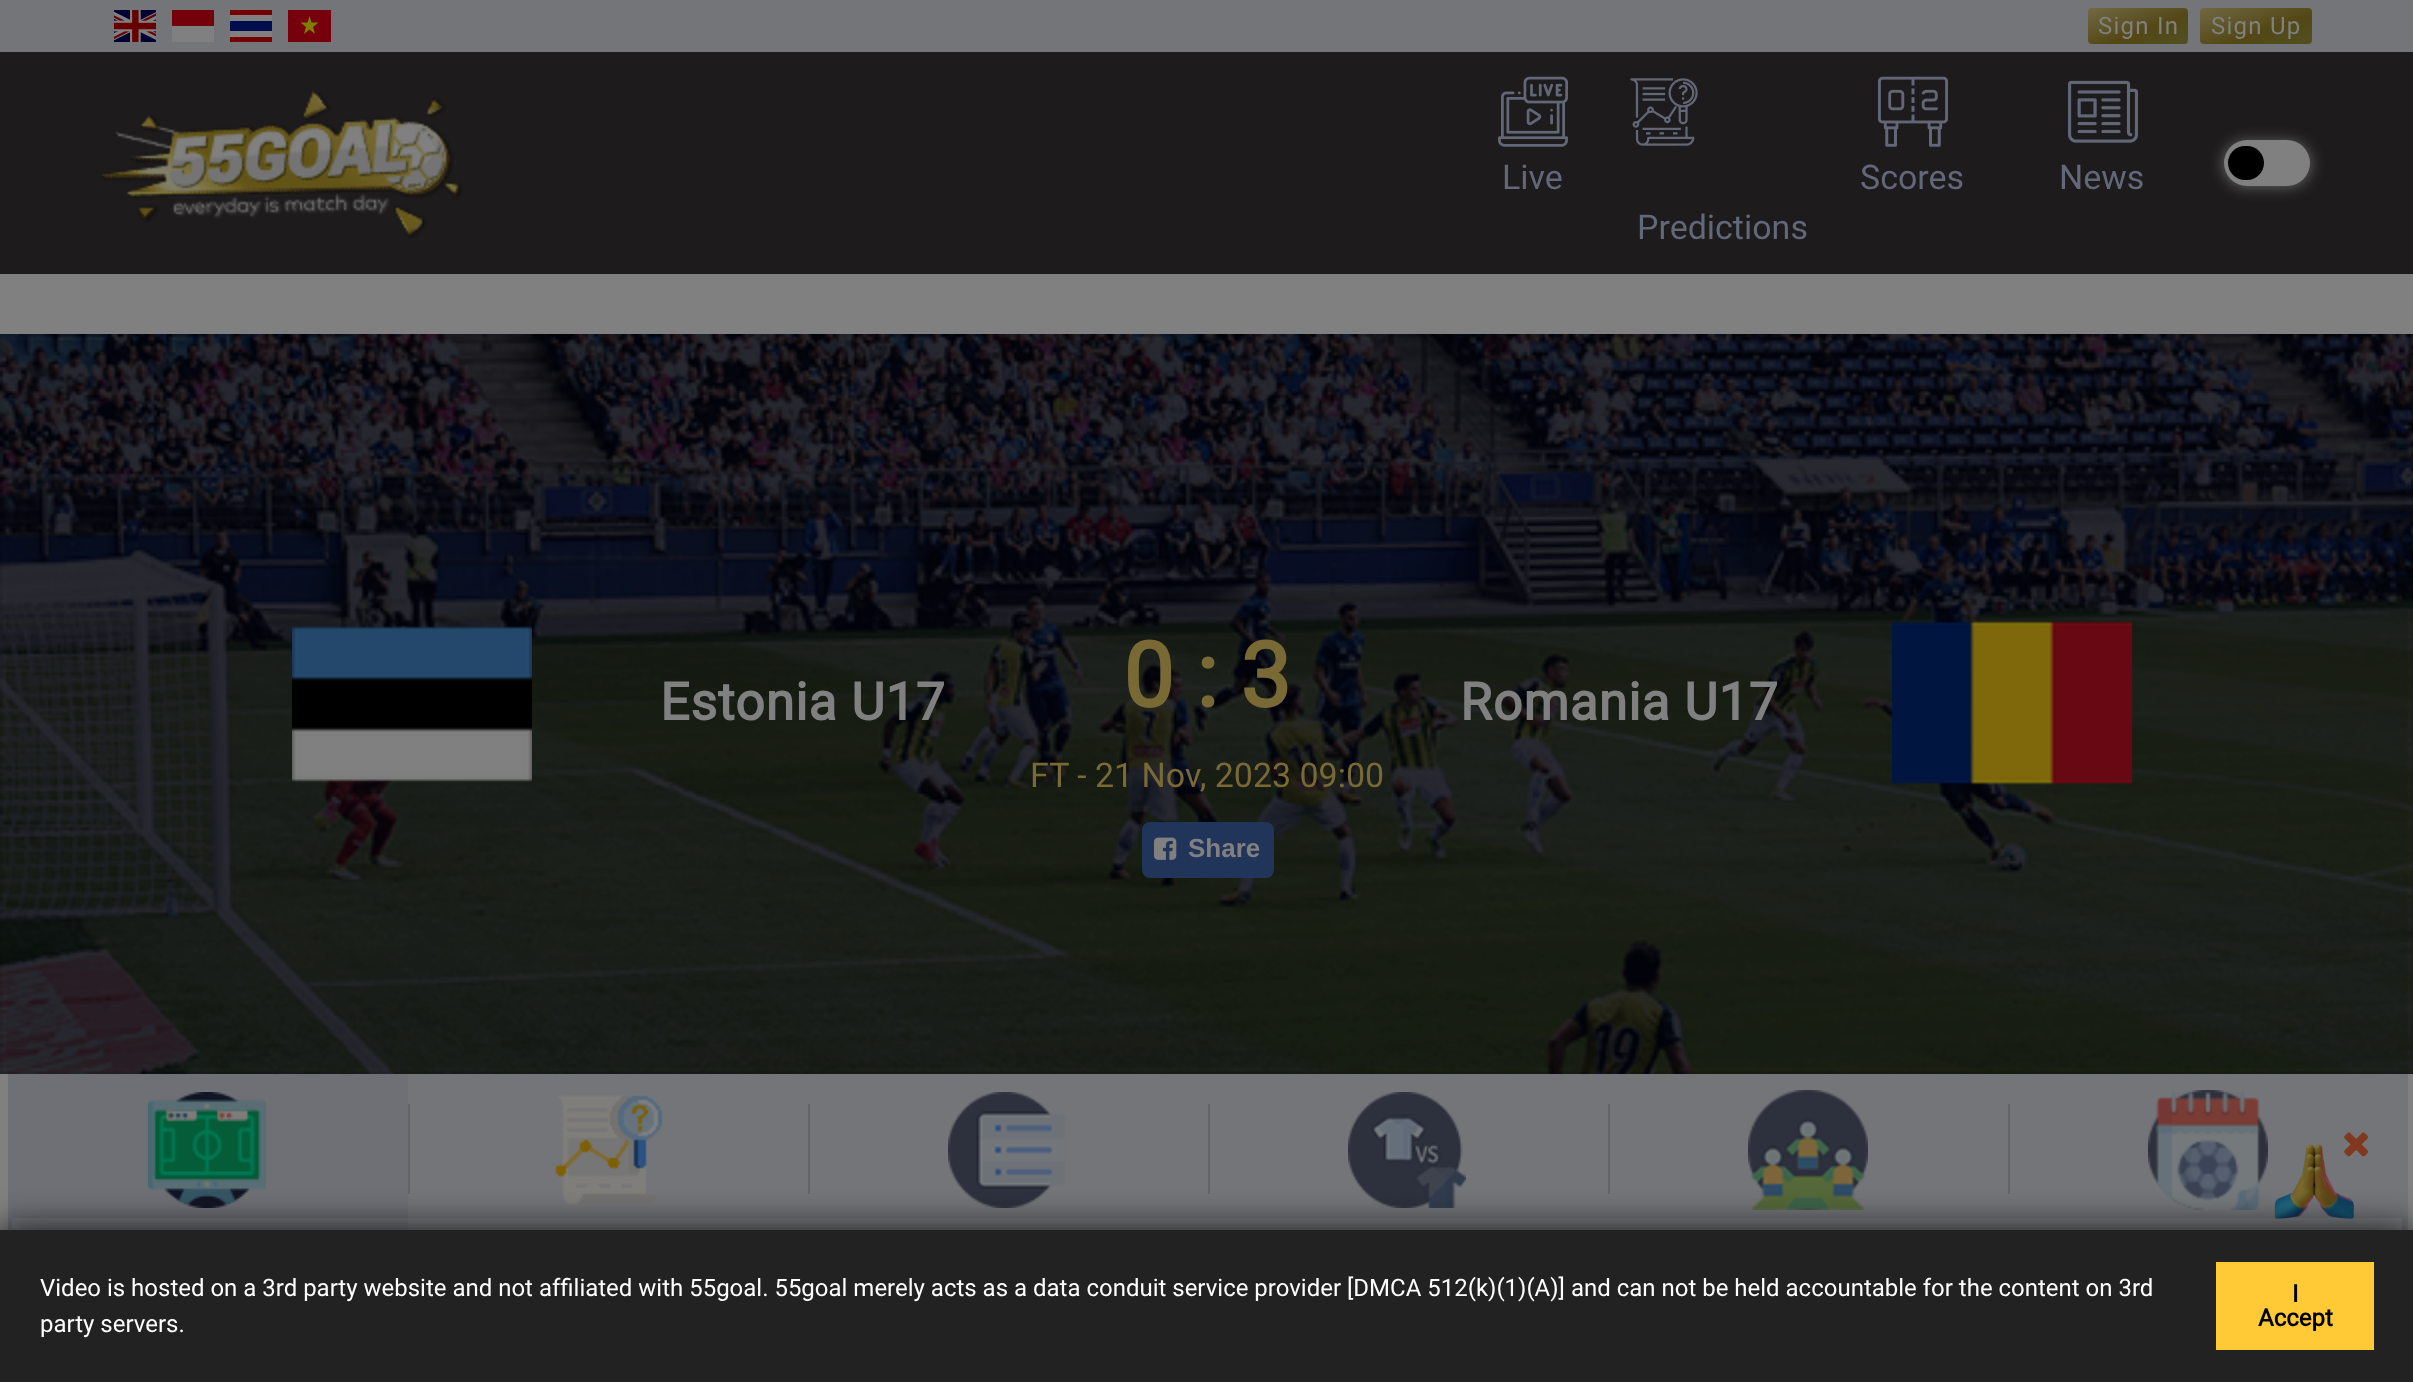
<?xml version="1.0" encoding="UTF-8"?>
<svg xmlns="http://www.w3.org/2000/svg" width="2413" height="1382">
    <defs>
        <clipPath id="clip1"><rect x="230" y="10" width="42" height="32"/></clipPath>
        <linearGradient id="g1" gradientUnits="userSpaceOnUse" x1="2126" y1="-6" x2="2150" y2="58"><stop offset="0" stop-color="#706944"/><stop offset="0.6" stop-color="#534715"/><stop offset="1" stop-color="#515022"/></linearGradient>
        <linearGradient id="g2" gradientUnits="userSpaceOnUse" x1="2244" y1="-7.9" x2="2268" y2="60"><stop offset="0" stop-color="#706944"/><stop offset="0.6" stop-color="#534715"/><stop offset="1" stop-color="#515022"/></linearGradient>
        <filter id="blur1" x="-50%" y="-200%" width="200%" height="500%"><feGaussianBlur stdDeviation="7.5"/></filter>
        <filter id="blur2" x="-50%" y="-200%" width="200%" height="500%"><feGaussianBlur stdDeviation="18"/></filter>
    </defs>
    <rect width="100%" height="100%" fill="#808080"/>
    <rect x="0" y="0" width="2413" height="52" fill="#747579"/>
    <image x="114" y="10" width="42" height="32" href="img_01.png"/>
    <rect x="172" y="10" width="42" height="16" fill="#740009"/>
    <rect x="172" y="26" width="42" height="16" fill="#808080"/>
    <rect x="230" y="15" width="42" height="22" fill="#808080"/>
    <rect x="230" y="21" width="42" height="10" fill="#000E4D"/>
    <g clip-path="url(#clip1)">
        <path d="M 230 10 H 273 V 15 H 230 Z M 230 37 H 273 V 42 H 230 Z" fill="#740000" fill-rule="evenodd"/>
    </g>
    <rect x="288" y="10" width="43" height="32" fill="#76000B"/>
    <path d="M 315 34 L 309.5 29.5 L 304 34 L 306 27 L 300.5 22.5 H 307.5 L 309.5 16 L 311.5 22.5 H 318.5 L 313 27 Z" fill="#808000" fill-rule="evenodd"/>
    <rect x="2088" y="8" width="100" height="36" rx="4" fill="url(#g1)"/>
    <text x="2098" y="34" font-family="Roboto" font-size="24" letter-spacing="1.25" fill="#808080">Sign In</text>
    <rect x="2200" y="8" width="112" height="36" rx="4" fill="url(#g2)"/>
    <text x="2211" y="34" font-family="Roboto" font-size="24" letter-spacing="1.25" fill="#808080">Sign Up</text>
    <rect x="0" y="52" width="2413" height="222" fill="#1D1B1C"/>
    <image x="100" y="91" width="363" height="147" href="img_02.png"/>
    <image x="1498" y="76" width="70" height="71" href="img_03.png"/>
    <text x="1502" y="189" font-family="Roboto" font-size="34" fill="#626779">Live</text>
    <image x="1878" y="76" width="70" height="71" href="img_04.png"/>
    <text x="1860" y="189" font-family="Roboto" font-size="34" fill="#626779">Scores</text>
    <image x="2068" y="80" width="70" height="63" href="img_05.png"/>
    <text x="2059" y="189" font-family="Roboto" font-size="34" fill="#626779">News</text>
    <image x="1630" y="78" width="68" height="68" href="img_06.png"/>
    <text x="1637" y="239" font-family="Roboto" font-size="34" fill="#626779">Predictions</text>
    <rect x="2224" y="142" width="86" height="44" rx="22" fill="#6D6D6D" filter="url(#blur1)"/>
    <rect x="2224" y="140" width="86" height="46" rx="23" fill="#808080"/>
    <rect x="2228" y="146" width="36" height="34" rx="17" fill="#000000"/>
    <rect x="0" y="334" width="2413" height="740" fill="#02040D"/>
    <image x="0" y="334" width="2413" height="740" href="img_07.png"/>
    <image x="292" y="625" width="240" height="158" href="img_08.png"/>
    <text x="660" y="720" font-family="Roboto" font-size="52" font-weight="700" letter-spacing="0.75" fill="#808080">Estonia U17</text>
    <text x="1123" y="707" font-family="Roboto" font-size="90" font-weight="700" fill="#796935">0 : 3</text>
    <text x="1030" y="787" font-family="Roboto" font-size="34" fill="#796935">FT - 21 Nov, 2023 09:00</text>
    <text x="1460" y="720" font-family="Roboto" font-size="52" font-weight="700" letter-spacing="0.75" fill="#808080">Romania U17</text>
    <image x="1892" y="620" width="240" height="165" href="img_09.png"/>
    <rect x="1143" y="823" width="130" height="54" rx="7" fill="#213459" stroke="#213459" stroke-width="2"/>
    <image x="1154" y="837" width="23" height="23" href="img_10.png"/>
    <text x="1188" y="857" font-family="Liberation Sans" font-size="26" font-weight="700" fill="#808080">Share</text>
    <rect x="408" y="1074" width="2000" height="156" fill="#747579"/>
    <rect x="8" y="1074" width="400" height="156" fill="#6E7076"/>
    <image x="148" y="1092" width="118" height="116" href="img_11.png"/>
    <rect x="408" y="1104" width="2" height="90" fill="#62646A"/>
    <image x="555" y="1095" width="108" height="110" href="img_12.png"/>
    <rect x="808" y="1104" width="2" height="90" fill="#62646A"/>
    <image x="948" y="1092" width="118" height="116" href="img_13.png"/>
    <rect x="1208" y="1104" width="2" height="90" fill="#62646A"/>
    <image x="1348" y="1092" width="118" height="116" href="img_14.png"/>
    <rect x="1608" y="1104" width="2" height="90" fill="#62646A"/>
    <image x="1748" y="1090" width="120" height="120" href="img_15.png"/>
    <rect x="2008" y="1104" width="2" height="90" fill="#62646A"/>
    <image x="2148" y="1090" width="120" height="120" href="img_16.png"/>
    <image x="2274" y="1144" width="80" height="75" href="img_17.png"/>
    <image x="2344" y="1132" width="25" height="25" href="img_18.png"/>
    <rect x="0" y="1230" width="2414" height="152" fill="#171717" filter="url(#blur2)"/>
    <rect x="0" y="1230" width="2413" height="152" fill="#222222"/>
    <text font-family="Roboto" font-size="24" fill="#FFFFFF">
        <tspan x="40" y="1296">Video is hosted on a 3rd party website and not affiliated with 55goal. 55goal merely acts as a data conduit service provider [DMCA 512(k)(1)(A)] and can not be held accountable for the content on 3rd</tspan>
        <tspan x="40" y="1332">party servers.</tspan>
    </text>
    <rect x="2216" y="1262" width="158" height="88" fill="#FFCA35"/>
    <text x="2292" y="1302" font-family="Roboto" font-size="24" font-weight="700" fill="#000000">I</text>
    <text x="2258" y="1326" font-family="Roboto" font-size="24" font-weight="700" fill="#000000">Accept</text>
</svg>
